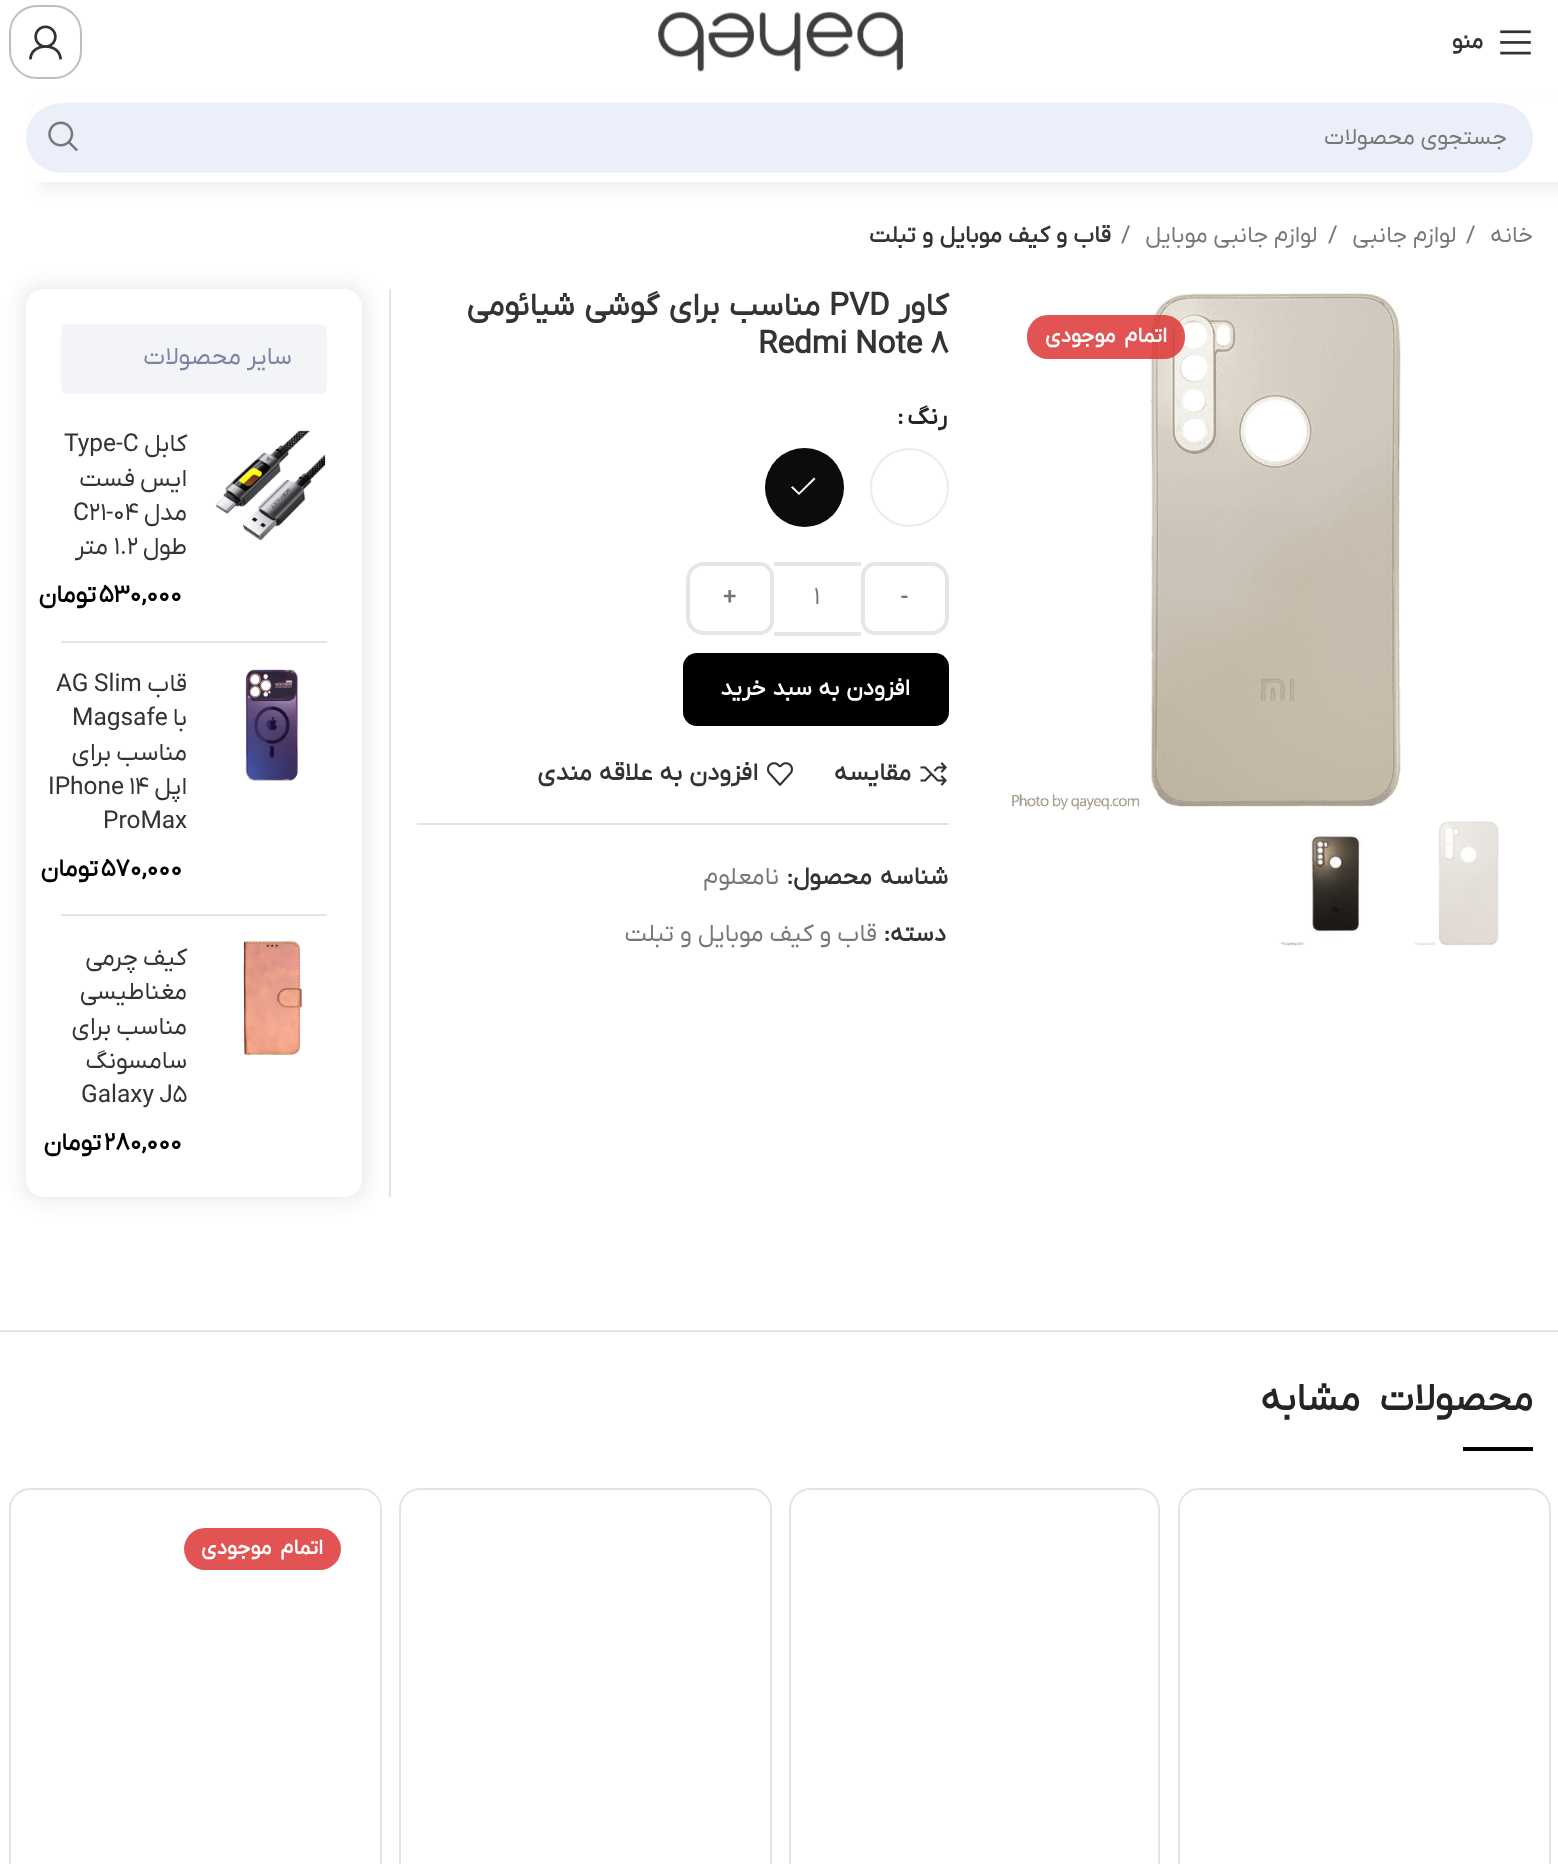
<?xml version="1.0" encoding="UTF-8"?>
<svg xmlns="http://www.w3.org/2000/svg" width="1558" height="1864">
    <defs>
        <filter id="blur1" x="-50%" y="-200%" width="200%" height="500%"><feGaussianBlur stdDeviation="7"/></filter>
        <clipPath id="clip1"><path d="M 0 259 H 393 V 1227 H 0 Z M 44 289 H 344 C 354 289 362 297 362 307 V 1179 C 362 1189 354 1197 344 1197 H 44 C 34 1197 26 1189 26 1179 V 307 C 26 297 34 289 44 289 Z" clip-rule="evenodd"/></clipPath>
        <filter id="blur2" x="-50%" y="-200%" width="200%" height="500%"><feGaussianBlur stdDeviation="8"/></filter>
    </defs>
    <rect width="100%" height="100%" fill="#FFFFFF"/>
    <image x="1500" y="30" width="31" height="25" href="img_01.png"/>
    <text x="1483" y="48" font-family="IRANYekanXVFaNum" font-size="22.75" font-weight="700" direction="rtl" fill="#333333">منو</text>
    <image x="658" y="11" width="245" height="61" href="img_02.png"/>
    <rect x="10" y="6" width="71" height="72" rx="27" fill="none" stroke="#BFBBC9" stroke-width="2"/>
    <image x="29" y="25" width="33" height="35" href="img_03.png"/>
    <rect x="39" y="103" width="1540" height="88" fill="#76788B" fill-opacity="0.1" filter="url(#blur1)"/>
    <rect x="33" y="97" width="1525" height="85" fill="#FFFFFF"/>
    <rect x="26" y="103" width="1507" height="70" rx="35" fill="#EBEFFA"/>
    <text x="1507" y="144" font-family="IRANYekanXVFaNum" font-size="22.75" direction="rtl" fill="#777777">جستجوی محصولات</text>
    <image x="48" y="121" width="30" height="31" href="img_04.png"/>
    <text x="1533" y="242" font-family="IRANYekanXVFaNum" font-size="23.25" direction="rtl" fill="#777777">خانه</text>
    <text x="1466" y="242" font-family="IRANYekanXVFaNum" font-size="23.25" fill="#777777">/</text>
    <text x="1456" y="242" font-family="IRANYekanXVFaNum" font-size="23.25" direction="rtl" fill="#777777">لوازم جانبی</text>
    <text x="1328" y="242" font-family="IRANYekanXVFaNum" font-size="23.25" fill="#777777">/</text>
    <text x="1317" y="242" font-family="IRANYekanXVFaNum" font-size="23.25" direction="rtl" fill="#777777">لوازم جانبی موبایل</text>
    <text x="1121" y="242" font-family="IRANYekanXVFaNum" font-size="23.25" fill="#777777">/</text>
    <text x="1111" y="242" word-spacing="0.5" font-family="IRANYekanXVFaNum" font-size="23.25" font-weight="700" direction="rtl" fill="#333333">قاب و کیف موبایل و تبلت</text>
    <image x="1011" y="292" width="391" height="518" href="img_05.png"/>
    <rect x="1027" y="315" width="158" height="44" rx="21" fill="#DD3333" fill-opacity="0.84"/>
    <text x="1167" y="342" word-spacing="4" font-family="IRANYekanXVFaNum" font-size="21" font-weight="700" direction="rtl" fill="#FFFFFF">اتمام موجودی</text>
    <image x="1413" y="821" width="86" height="125" href="img_06.png"/>
    <image x="1278" y="834" width="86" height="112" href="img_07.png"/>
    <text x="948" y="315" font-family="IRANYekanXVFaNum" font-size="31.5" font-weight="700" direction="rtl" fill="#333333">کاور</text>
    <text x="829" y="315" font-family="IRANYekanXVFaNum" font-size="31.5" font-weight="700" fill="#333333">PVD</text>
    <text x="820" y="315" word-spacing="1.5" font-family="IRANYekanXVFaNum" font-size="31.5" font-weight="700" direction="rtl" fill="#333333">مناسب برای گوشی شیائومی</text>
    <text x="758" y="353" font-family="IRANYekanXVFaNum" font-size="31.5" font-weight="700" fill="#333333">Redmi Note 8</text>
    <text x="947" y="424" font-family="IRANYekanXVFaNum" font-size="24.5" font-weight="700" direction="rtl" fill="#242424">رنگ</text>
    <text x="897" y="424" font-family="IRANYekanXVFaNum" font-size="24.5" font-weight="700" fill="#242424">:</text>
    <circle cx="909.5" cy="487.5" r="38.5" fill="none" stroke="#ECECEC" stroke-width="2"/>
    <circle cx="804.5" cy="487.5" r="39.5" fill="#0F0F0F"/>
    <circle cx="804.5" cy="487.5" r="39.5" fill="#000000" fill-opacity="0.2"/>
    <path d="M 815.5 479 L 814 477.5 L 799 492.5 L 792.5 486 L 791 487.5 L 799 495 Z" fill="#FFFFFF"/>
    <path d="M 875 564 H 931 C 940 564 947 571 947 580 V 617 C 947 626 940 633 931 633 H 875 C 868.5 633 863 627.5 863 621 V 576 C 863 569.5 868.5 564 875 564 Z" fill="none" stroke="#E6E6E6" stroke-width="4"/>
    <text x="901" y="604" font-family="IRANYekanXVFaNum" font-size="22.75" font-weight="700" fill="#777777">-</text>
    <rect x="774" y="562" width="87" height="4" fill="#E6E6E6"/>
    <rect x="774" y="632" width="87" height="4" fill="#E6E6E6"/>
    <text x="814" y="604" font-family="IRANYekanXVFaNum" font-size="24.5" fill="#777777">1</text>
    <path d="M 704 564 H 760 C 766.5 564 772 569.5 772 576 V 621 C 772 627.5 766.5 633 760 633 H 704 C 695 633 688 626 688 617 V 580 C 688 571 695 564 704 564 Z" fill="none" stroke="#E6E6E6" stroke-width="4"/>
    <text x="723" y="604" font-family="IRANYekanXVFaNum" font-size="22.75" font-weight="700" fill="#777777">+</text>
    <rect x="683" y="653" width="266" height="73" rx="14" fill="#000000"/>
    <text x="910" y="695" word-spacing="1" font-family="IRANYekanXVFaNum" font-size="22.75" font-weight="700" direction="rtl" fill="#FFFFFF">افزودن به سبد خرید</text>
    <image x="920" y="762" width="27" height="24" href="img_08.png"/>
    <text x="911" y="780" font-family="IRANYekanXVFaNum" font-size="24.5" font-weight="700" direction="rtl" fill="#333333">مقایسه</text>
    <image x="766" y="762" width="27" height="24" href="img_09.png"/>
    <text x="758" y="780" word-spacing="1" font-family="IRANYekanXVFaNum" font-size="24.5" font-weight="700" direction="rtl" fill="#333333">افزودن به علاقه مندی</text>
    <rect x="417" y="823" width="532" height="2" fill="#E4E4E4"/>
    <text x="948" y="884" word-spacing="2" font-family="IRANYekanXVFaNum" font-size="24.5" font-weight="700" direction="rtl" fill="#333333">شناسه محصول:</text>
    <text x="779" y="884" font-family="IRANYekanXVFaNum" font-size="24.5" direction="rtl" fill="#777777">نامعلوم</text>
    <text x="946" y="941" font-family="IRANYekanXVFaNum" font-size="24.5" font-weight="700" direction="rtl" fill="#333333">دسته:</text>
    <text x="877" y="941" font-family="IRANYekanXVFaNum" font-size="24.5" direction="rtl" fill="#777777">قاب و کیف موبایل و تبلت</text>
    <rect x="389" y="289" width="2" height="908" fill="#E4E4E4"/>
    <g clip-path="url(#clip1)">
        <rect x="21" y="284" width="347" height="918" rx="23" fill="#5D6474" fill-opacity="0.12" filter="url(#blur2)"/>
    </g>
    <rect x="61" y="324" width="266" height="70" rx="7" fill="#F3F4F7"/>
    <text x="292" y="364" font-family="IRANYekanXVFaNum" font-size="24.5" direction="rtl" fill="#7B85A3">سایر محصولات</text>
    <rect x="61" y="641" width="266" height="2" fill="#E4E4E4"/>
    <image x="215" y="430" width="111" height="111" href="img_10.png"/>
    <text x="187" y="451" font-family="IRANYekanXVFaNum" font-size="24.5" direction="rtl" fill="#333333">کابل</text>
    <text x="64" y="451" font-family="IRANYekanXVFaNum" font-size="24.5" fill="#333333">Type-C</text>
    <text font-family="IRANYekanXVFaNum" font-size="24.5" direction="rtl" fill="#333333">
        <tspan x="187" y="486" word-spacing="-1">ایس فست</tspan>
        <tspan x="187" y="520">مدل</tspan>
    </text>
    <text x="73" y="520" font-family="IRANYekanXVFaNum" font-size="24.5" fill="#333333">C21-04</text>
    <text x="187" y="554" font-family="IRANYekanXVFaNum" font-size="24.5" direction="rtl" fill="#333333">طول</text>
    <text x="114" y="554" font-family="IRANYekanXVFaNum" font-size="24.5" fill="#333333">۱.۲</text>
    <text x="108" y="554" font-family="IRANYekanXVFaNum" font-size="24.5" direction="rtl" fill="#333333">متر</text>
    <text x="99" y="602" font-family="IRANYekanXVFaNum" font-size="24.5" font-weight="700" fill="#000000">530,000</text>
    <text x="96" y="602" font-family="IRANYekanXVFaNum" font-size="24.5" font-weight="700" direction="rtl" fill="#000000">تومان</text>
    <rect x="61" y="914" width="266" height="2" fill="#E4E4E4"/>
    <image x="245" y="669" width="53" height="112" href="img_11.png"/>
    <text x="187" y="691" font-family="IRANYekanXVFaNum" font-size="24.5" direction="rtl" fill="#333333">قاب</text>
    <text x="56" y="691" word-spacing="-1" font-family="IRANYekanXVFaNum" font-size="24.5" fill="#333333">AG Slim</text>
    <text x="187" y="725" font-family="IRANYekanXVFaNum" font-size="24.5" direction="rtl" fill="#333333">با</text>
    <text x="72" y="725" font-family="IRANYekanXVFaNum" font-size="24.5" fill="#333333">Magsafe</text>
    <text font-family="IRANYekanXVFaNum" font-size="24.5" direction="rtl" fill="#333333">
        <tspan x="187" y="760" word-spacing="-1">مناسب برای</tspan>
        <tspan x="187" y="794">اپل</tspan>
    </text>
    <text x="48" y="794" word-spacing="-1" font-family="IRANYekanXVFaNum" font-size="24.5" fill="#333333">IPhone 14</text>
    <text x="103" y="828" font-family="IRANYekanXVFaNum" font-size="24.5" fill="#333333">ProMax</text>
    <text x="101" y="876" font-family="IRANYekanXVFaNum" font-size="24.5" font-weight="700" fill="#000000">570,000</text>
    <text x="98" y="876" font-family="IRANYekanXVFaNum" font-size="24.5" font-weight="700" direction="rtl" fill="#000000">تومان</text>
    <image x="243" y="941" width="60" height="114" href="img_12.png"/>
    <text font-family="IRANYekanXVFaNum" font-size="24.5" direction="rtl" fill="#333333">
        <tspan x="187" y="965" word-spacing="-1">کیف چرمی</tspan>
        <tspan x="187" y="999">مغناطیسی</tspan>
        <tspan x="187" y="1034" word-spacing="-1">مناسب برای</tspan>
        <tspan x="187" y="1068">سامسونگ</tspan>
    </text>
    <text x="81" y="1102" word-spacing="-1" font-family="IRANYekanXVFaNum" font-size="24.5" fill="#333333">Galaxy J5</text>
    <text x="104" y="1150" font-family="IRANYekanXVFaNum" font-size="24.5" font-weight="700" fill="#000000">280,000</text>
    <text x="101" y="1150" font-family="IRANYekanXVFaNum" font-size="24.5" font-weight="700" direction="rtl" fill="#000000">تومان</text>
    <rect x="0" y="1330" width="1558" height="2" fill="#E4E4E4"/>
    <text x="1533" y="1410" word-spacing="10" font-family="IRANYekanXVFaNum" font-size="38.5" font-weight="700" direction="rtl" fill="#242424">محصولات مشابه</text>
    <rect x="1463" y="1447" width="70" height="4" fill="#000000"/>
    <rect x="1179" y="1489" width="371" height="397" rx="20" fill="none" stroke="#E4E4E4" stroke-width="2"/>
    <rect x="790" y="1489" width="369" height="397" rx="20" fill="none" stroke="#E4E4E4" stroke-width="2"/>
    <rect x="400" y="1489" width="371" height="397" rx="20" fill="none" stroke="#E4E4E4" stroke-width="2"/>
    <rect x="10" y="1489" width="371" height="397" rx="20" fill="none" stroke="#E4E4E4" stroke-width="2"/>
    <rect x="184" y="1528" width="157" height="42" rx="21" fill="#E25454"/>
    <text x="323" y="1554" word-spacing="4" font-family="IRANYekanXVFaNum" font-size="21" font-weight="700" direction="rtl" fill="#FFFFFF">اتمام موجودی</text>
</svg>
